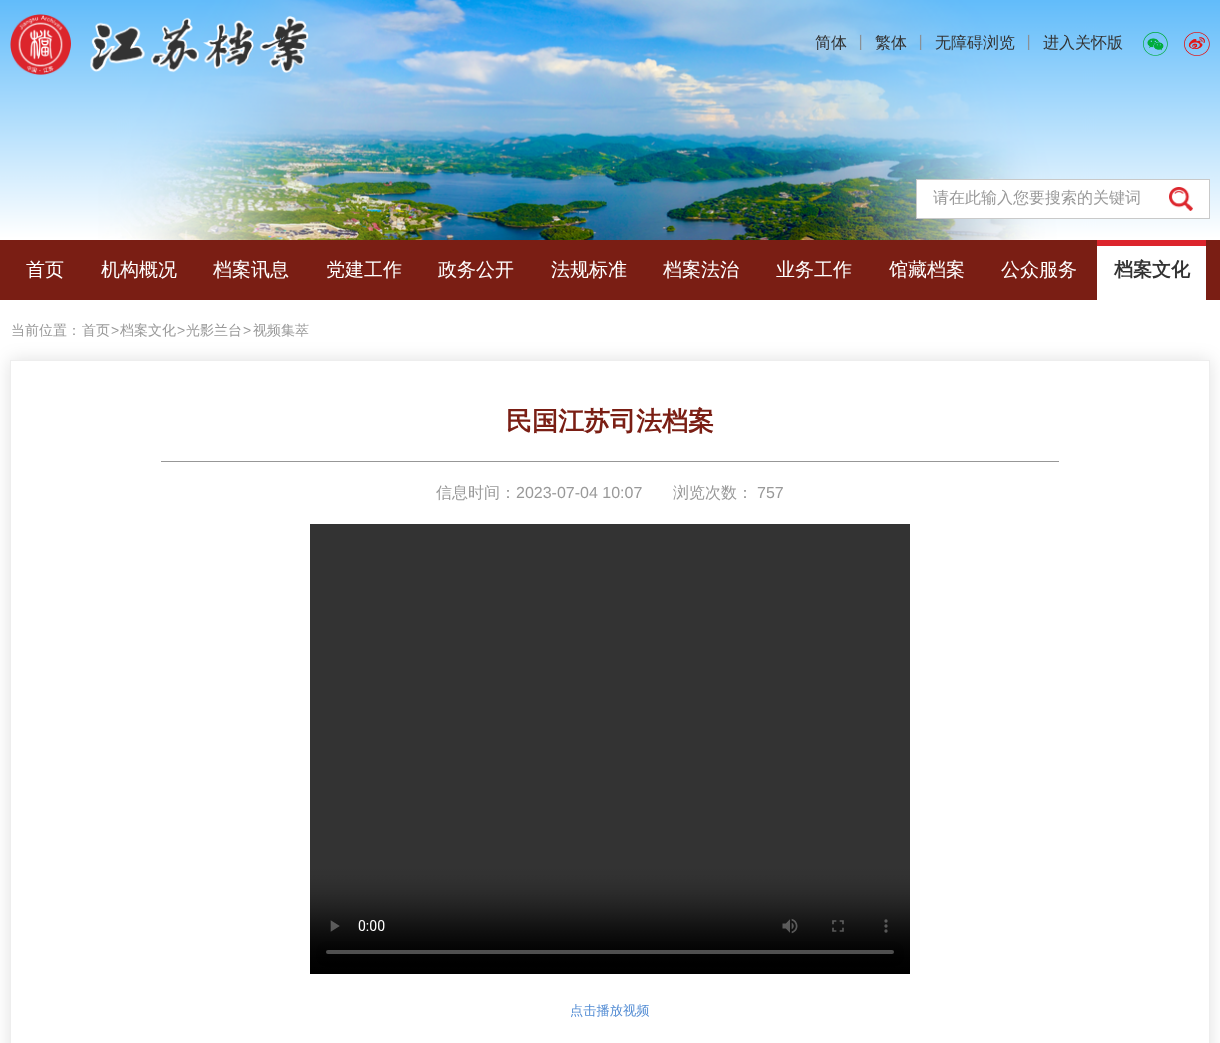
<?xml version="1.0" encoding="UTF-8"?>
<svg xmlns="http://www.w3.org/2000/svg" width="1220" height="1043">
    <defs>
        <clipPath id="clip1"><path d="M 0 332 H 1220 V 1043 H 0 Z M 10 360 H 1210 V 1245 H 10 Z" clip-rule="evenodd"/></clipPath>
        <filter id="blur1" x="-50%" y="-200%" width="200%" height="500%"><feGaussianBlur stdDeviation="9"/></filter>
    </defs>
    <rect width="100%" height="100%" fill="#FFFFFF"/>
    <image x="0" y="0" width="1220" height="240" href="img_01.png"/>
    <image x="10" y="14" width="299" height="61" href="img_02.png"/>
    <text x="815" y="48" font-family="WenQuanYi Zen Hei" font-size="16" font-weight="500" fill="#333333">简体</text>
    <text x="853" y="48" font-family="WenQuanYi Zen Hei" font-size="16" font-weight="500" fill="#8A9095">丨</text>
    <text x="875" y="48" font-family="WenQuanYi Zen Hei" font-size="16" font-weight="500" fill="#333333">繁体</text>
    <text x="913" y="48" font-family="WenQuanYi Zen Hei" font-size="16" font-weight="500" fill="#8A9095">丨</text>
    <text x="935" y="48" font-family="WenQuanYi Zen Hei" font-size="16" font-weight="500" fill="#333333">无障碍浏览</text>
    <text x="1021" y="48" font-family="WenQuanYi Zen Hei" font-size="16" font-weight="500" fill="#8A9095">丨</text>
    <text x="1043" y="48" font-family="WenQuanYi Zen Hei" font-size="16" font-weight="500" fill="#333333">进入关怀版</text>
    <image x="1143" y="32" width="25" height="24" href="img_03.png"/>
    <image x="1184" y="32" width="26" height="24" href="img_04.png"/>
    <rect x="916.5" y="179.5" width="293" height="39" fill="#FFFFFF" stroke="#C9C9C9"/>
    <text x="933" y="203" font-family="WenQuanYi Zen Hei" font-size="16" font-weight="500" fill="#999999">请在此输入您要搜索的关键词</text>
    <image x="1169" y="187" width="24" height="24" href="img_05.png"/>
    <rect x="0" y="240" width="1220" height="60" fill="#7A1E14"/>
    <text x="26" y="276" font-family="WenQuanYi Zen Hei" font-size="19" font-weight="500" fill="#FFFFFF">首页</text>
    <text x="101" y="276" font-family="WenQuanYi Zen Hei" font-size="19" font-weight="500" fill="#FFFFFF">机构概况</text>
    <text x="213" y="276" font-family="WenQuanYi Zen Hei" font-size="19" font-weight="500" fill="#FFFFFF">档案讯息</text>
    <text x="326" y="276" font-family="WenQuanYi Zen Hei" font-size="19" font-weight="500" fill="#FFFFFF">党建工作</text>
    <text x="438" y="276" font-family="WenQuanYi Zen Hei" font-size="19" font-weight="500" fill="#FFFFFF">政务公开</text>
    <text x="551" y="276" font-family="WenQuanYi Zen Hei" font-size="19" font-weight="500" fill="#FFFFFF">法规标准</text>
    <text x="663" y="276" font-family="WenQuanYi Zen Hei" font-size="19" font-weight="500" fill="#FFFFFF">档案法治</text>
    <text x="776" y="276" font-family="WenQuanYi Zen Hei" font-size="19" font-weight="500" fill="#FFFFFF">业务工作</text>
    <text x="889" y="276" font-family="WenQuanYi Zen Hei" font-size="19" font-weight="500" fill="#FFFFFF">馆藏档案</text>
    <text x="1001" y="276" font-family="WenQuanYi Zen Hei" font-size="19" font-weight="500" fill="#FFFFFF">公众服务</text>
    <rect x="1097" y="246" width="109" height="54" fill="#FFFFFF"/>
    <rect x="1097" y="240" width="109" height="6" fill="#DC252C"/>
    <text x="1114" y="276" font-family="WenQuanYi Zen Hei" font-size="19" font-weight="700" fill="#333333">档案文化</text>
    <g clip-path="url(#clip1)">
        <rect x="10" y="360" width="1200" height="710" fill="#000000" fill-opacity="0.12" filter="url(#blur1)"/>
    </g>
    <text x="11" y="335" font-family="WenQuanYi Zen Hei" font-size="14" font-weight="500" fill="#999999">当前位置：</text>
    <text x="82" y="335" font-family="WenQuanYi Zen Hei" font-size="14" font-weight="500" fill="#999999">首页</text>
    <text x="111" y="335" font-family="Liberation Sans" font-size="14" fill="#999999">&gt;</text>
    <text x="120" y="335" font-family="WenQuanYi Zen Hei" font-size="14" font-weight="500" fill="#999999">档案文化</text>
    <text x="177" y="335" font-family="Liberation Sans" font-size="14" fill="#999999">&gt;</text>
    <text x="186" y="335" font-family="WenQuanYi Zen Hei" font-size="14" font-weight="500" fill="#999999">光影兰台</text>
    <text x="243" y="335" font-family="Liberation Sans" font-size="14" fill="#999999">&gt;</text>
    <text x="253" y="335" font-family="WenQuanYi Zen Hei" font-size="14" font-weight="500" fill="#999999">视频集萃</text>
    <rect x="10.5" y="360.5" width="1199" height="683" fill="none" stroke="#EEEEEE"/>
    <rect x="161" y="461" width="898" height="1" fill="#979797"/>
    <text x="506" y="430" font-family="WenQuanYi Zen Hei" font-size="26" font-weight="700" fill="#7A1E14">民国江苏司法档案</text>
    <text x="436" y="498" font-family="WenQuanYi Zen Hei" font-size="16" font-weight="500" fill="#999999">信息时间：</text>
    <text x="516" y="498" font-family="Liberation Sans" font-size="16" fill="#999999">2023-07-04 10:07</text>
    <text x="673" y="498" font-family="WenQuanYi Zen Hei" font-size="16" font-weight="500" fill="#999999">浏览次数：</text>
    <text x="757" y="498" font-family="Liberation Sans" font-size="16" fill="#999999">757</text>
    <image x="310" y="524" width="600" height="450" href="img_06.png"/>
    <text x="570" y="1015" font-family="WenQuanYi Zen Hei" font-size="13.25" font-weight="500" fill="#548DD4">点击播放视频</text>
</svg>
